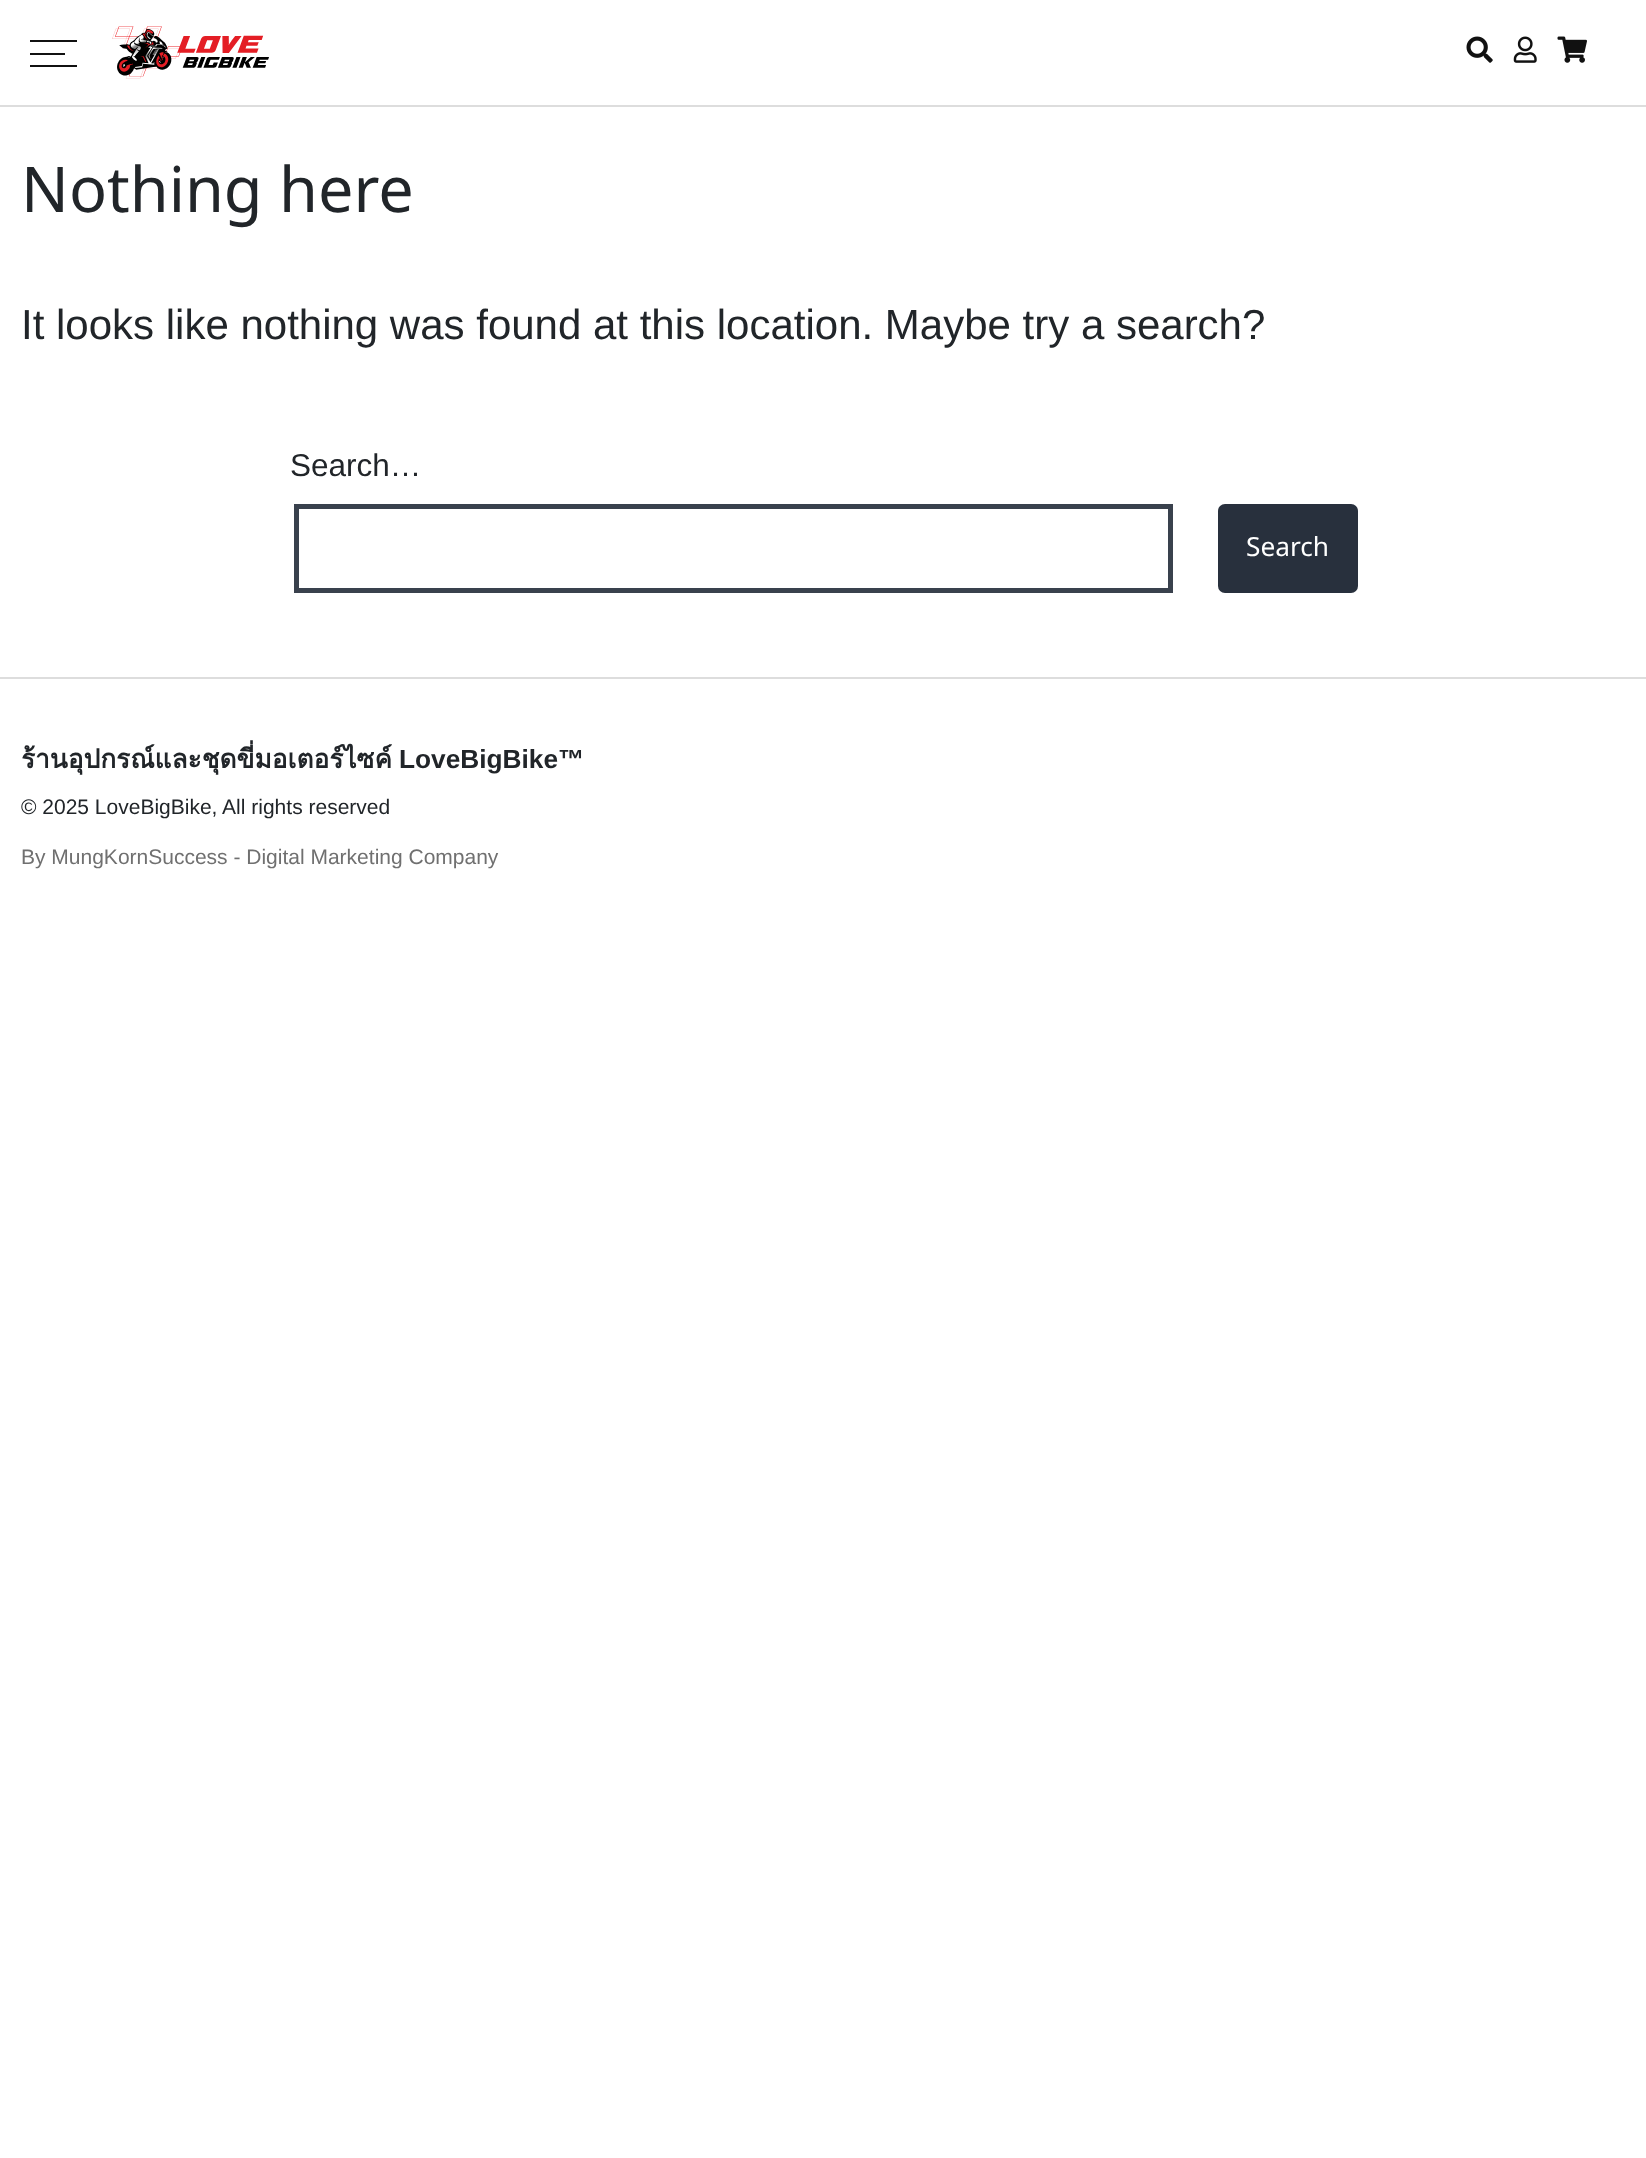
<?xml version="1.0" encoding="UTF-8"?>
<svg xmlns="http://www.w3.org/2000/svg" width="1646" height="2158">
    <rect width="100%" height="100%" fill="#FFFFFF"/>
    <rect x="0" y="105" width="1646" height="2" fill="#DDDDDD"/>
    <rect x="30" y="53" width="35" height="2" fill="#111111"/>
    <rect x="30" y="40" width="47" height="2" fill="#111111"/>
    <rect x="30" y="65" width="47" height="2" fill="#111111"/>
    <image x="112" y="26" width="157" height="53" href="img_01.png"/>
    <image x="1466" y="36" width="27" height="27" href="img_02.png"/>
    <image x="1513" y="36" width="24" height="27" href="img_03.png"/>
    <image x="1557" y="36" width="30" height="27" href="img_04.png"/>
    <text x="21" y="212" font-family="Noto Sans Thai" font-size="63" fill="#212529">Nothing here</text>
    <text x="21" y="339" font-family="Liberation Sans" font-size="42" fill="#212529">It looks like nothing was found at this location. Maybe try a search?</text>
    <text x="290" y="476" font-family="Liberation Sans" font-size="31.5" fill="#212529">Search…</text>
    <rect x="296.5" y="506.5" width="874" height="84" fill="none" stroke="#39414D" stroke-width="5"/>
    <rect x="1218" y="504" width="140" height="89" rx="7" fill="#28303D"/>
    <text x="1246" y="556" font-family="Noto Sans Thai" font-size="26.25" fill="#FFFFFF">Search</text>
    <rect x="0" y="677" width="1646" height="2" fill="#DDDDDD"/>
    <text x="21" y="768" font-family="Loma" font-size="26.25" font-weight="700" fill="#212529">ร้านอุปกรณ์และชุดขี่มอเตอร์ไซค์</text>
    <text x="399" y="768" font-family="Liberation Sans" font-size="26.25" font-weight="700" fill="#212529">LoveBigBike™</text>
    <text x="21" y="814" font-family="Liberation Sans" font-size="21" fill="#212529">© 2025 LoveBigBike, All rights reserved</text>
    <text x="21" y="864" font-family="Liberation Sans" font-size="21" fill="#707070">By MungKornSuccess - Digital Marketing Company</text>
</svg>
